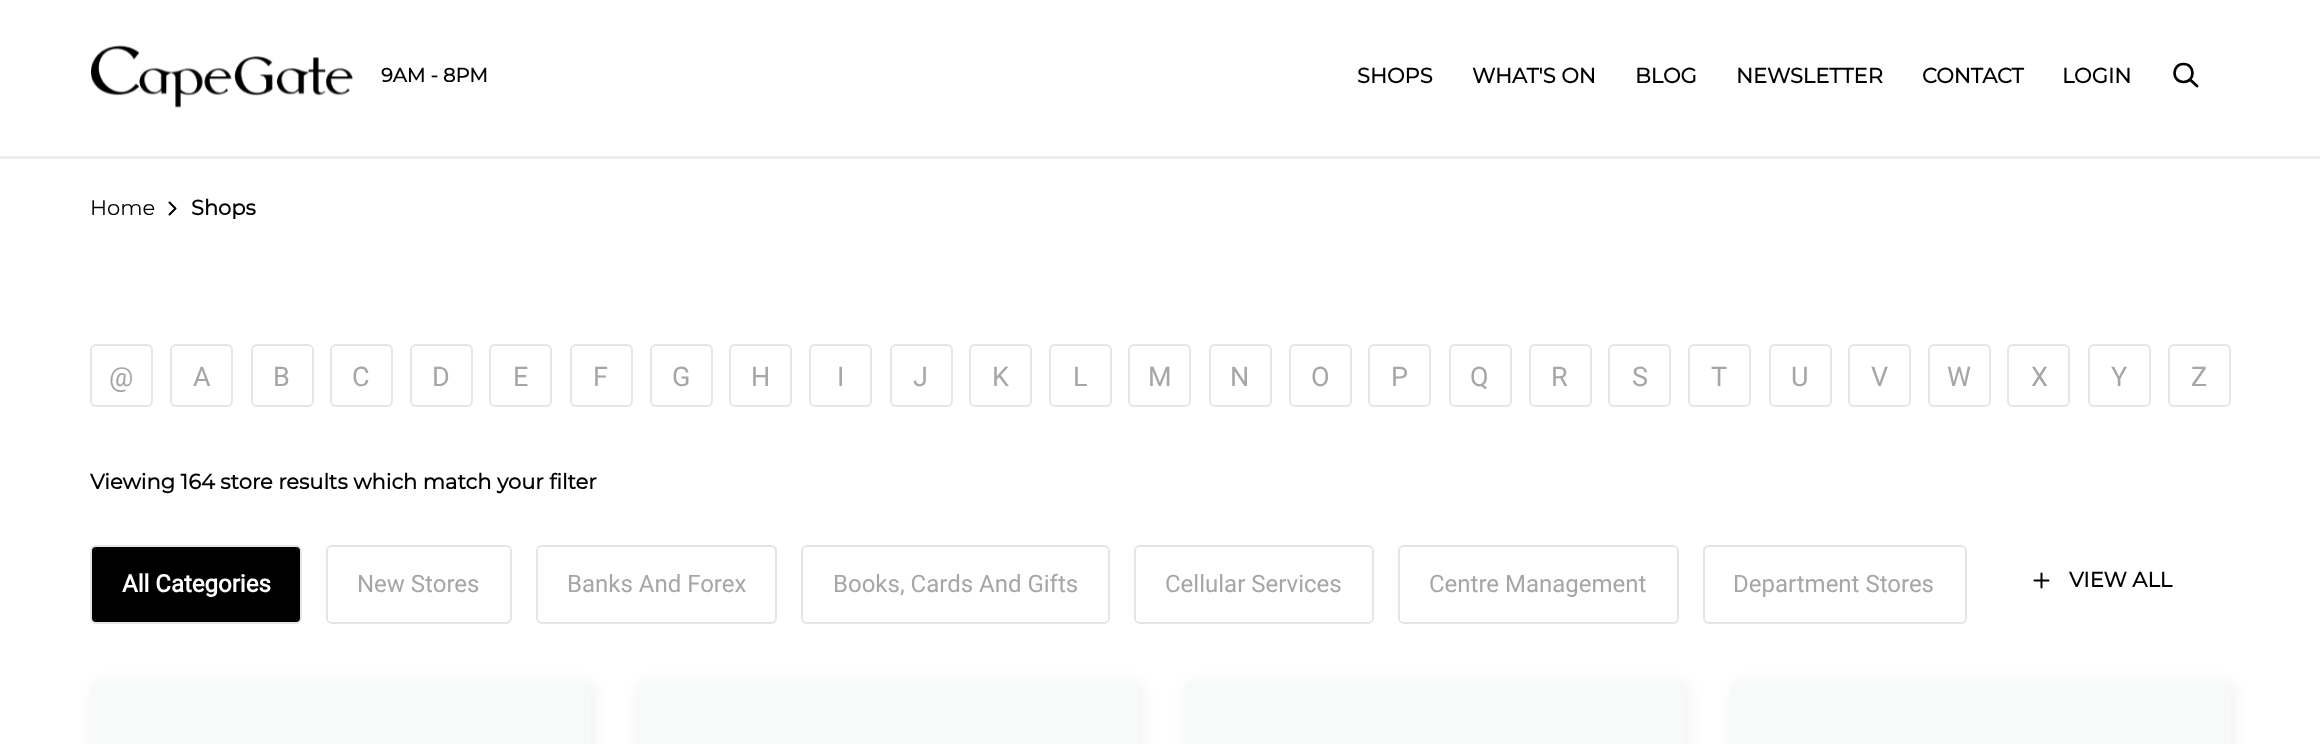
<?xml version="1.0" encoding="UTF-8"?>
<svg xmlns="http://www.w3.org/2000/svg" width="2320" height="744">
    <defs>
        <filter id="blur1" x="-50%" y="-200%" width="200%" height="500%"><feGaussianBlur stdDeviation="7.5"/></filter>
    </defs>
    <rect width="100%" height="100%" fill="#FFFFFF"/>
    <rect x="0" y="156" width="2320" height="3" fill="#EEEEEE"/>
    <image x="91" y="45" width="262" height="63" href="img_01.png"/>
    <text x="381" y="82" font-family="Montserrat" font-size="19.5" font-weight="700" fill="#000000">9AM - 8PM</text>
    <text x="1357" y="83" font-family="Montserrat" font-size="21" font-weight="700" fill="#000000">SHOPS</text>
    <text x="1472" y="83" font-family="Montserrat" font-size="21" font-weight="700" fill="#000000">WHAT'S ON</text>
    <text x="1635" y="83" font-family="Montserrat" font-size="21" font-weight="700" fill="#000000">BLOG</text>
    <text x="1736" y="83" font-family="Montserrat" font-size="21" font-weight="700" fill="#000000">NEWSLETTER</text>
    <text x="1922" y="83" font-family="Montserrat" font-size="21" font-weight="700" fill="#000000">CONTACT</text>
    <text x="2062" y="83" font-family="Montserrat" font-size="21" font-weight="700" fill="#000000">LOGIN</text>
    <path d="M 2183.5 64 C 2171.5 64 2171.5 82 2183.5 82 C 2195.5 82 2195.5 64 2183.5 64 Z" fill="none" stroke="#000000" stroke-width="2.7"/>
    <path d="M 2190.5 80 L 2197 86" fill="none" stroke="#000000" stroke-width="2.7" stroke-linecap="round"/>
    <text x="90" y="215" font-family="Montserrat" font-size="21" font-weight="100" fill="#000000">Home</text>
    <path d="M 169.5 202.5 L 175.5 208.5 L 169.5 214.5" fill="none" stroke="#000000" stroke-width="2" stroke-linecap="round" stroke-linejoin="round"/>
    <text x="191" y="215" font-family="Montserrat" font-size="21" font-weight="700" fill="#000000">Shops</text>
    <rect x="91" y="345" width="61" height="61" rx="5" fill="none" stroke="#E6E6E6" stroke-width="2"/>
    <text x="109" y="386" font-family="Roboto" font-size="27" fill="#A6A6A6">@</text>
    <rect x="171" y="345" width="61" height="61" rx="5" fill="none" stroke="#E6E6E6" stroke-width="2"/>
    <text x="193" y="386" font-family="Roboto" font-size="27" fill="#A6A6A6">A</text>
    <rect x="252" y="345" width="61" height="61" rx="5" fill="none" stroke="#E6E6E6" stroke-width="2"/>
    <text x="273" y="386" font-family="Roboto" font-size="27" fill="#A6A6A6">B</text>
    <rect x="331" y="345" width="61" height="61" rx="5" fill="none" stroke="#E6E6E6" stroke-width="2"/>
    <text x="352" y="386" font-family="Roboto" font-size="27" fill="#A6A6A6">C</text>
    <rect x="411" y="345" width="61" height="61" rx="5" fill="none" stroke="#E6E6E6" stroke-width="2"/>
    <text x="432" y="386" font-family="Roboto" font-size="27" fill="#A6A6A6">D</text>
    <rect x="490" y="345" width="61" height="61" rx="5" fill="none" stroke="#E6E6E6" stroke-width="2"/>
    <text x="513" y="386" font-family="Roboto" font-size="27" fill="#A6A6A6">E</text>
    <rect x="571" y="345" width="61" height="61" rx="5" fill="none" stroke="#E6E6E6" stroke-width="2"/>
    <text x="593" y="386" font-family="Roboto" font-size="27" fill="#A6A6A6">F</text>
    <rect x="651" y="345" width="61" height="61" rx="5" fill="none" stroke="#E6E6E6" stroke-width="2"/>
    <text x="672" y="386" font-family="Roboto" font-size="27" fill="#A6A6A6">G</text>
    <rect x="730" y="345" width="61" height="61" rx="5" fill="none" stroke="#E6E6E6" stroke-width="2"/>
    <text x="751" y="386" font-family="Roboto" font-size="27" fill="#A6A6A6">H</text>
    <rect x="810" y="345" width="61" height="61" rx="5" fill="none" stroke="#E6E6E6" stroke-width="2"/>
    <text x="837" y="386" font-family="Roboto" font-size="27" fill="#A6A6A6">I</text>
    <rect x="891" y="345" width="61" height="61" rx="5" fill="none" stroke="#E6E6E6" stroke-width="2"/>
    <text x="913" y="386" font-family="Roboto" font-size="27" fill="#A6A6A6">J</text>
    <rect x="970" y="345" width="61" height="61" rx="5" fill="none" stroke="#E6E6E6" stroke-width="2"/>
    <text x="992" y="386" font-family="Roboto" font-size="27" fill="#A6A6A6">K</text>
    <rect x="1050" y="345" width="61" height="61" rx="5" fill="none" stroke="#E6E6E6" stroke-width="2"/>
    <text x="1073" y="386" font-family="Roboto" font-size="27" fill="#A6A6A6">L</text>
    <rect x="1129" y="345" width="61" height="61" rx="5" fill="none" stroke="#E6E6E6" stroke-width="2"/>
    <text x="1148" y="386" font-family="Roboto" font-size="27" fill="#A6A6A6">M</text>
    <rect x="1210" y="345" width="61" height="61" rx="5" fill="none" stroke="#E6E6E6" stroke-width="2"/>
    <text x="1230" y="386" font-family="Roboto" font-size="27" fill="#A6A6A6">N</text>
    <rect x="1290" y="345" width="61" height="61" rx="5" fill="none" stroke="#E6E6E6" stroke-width="2"/>
    <text x="1311" y="386" font-family="Roboto" font-size="27" fill="#A6A6A6">O</text>
    <rect x="1369" y="345" width="61" height="61" rx="5" fill="none" stroke="#E6E6E6" stroke-width="2"/>
    <text x="1391" y="386" font-family="Roboto" font-size="27" fill="#A6A6A6">P</text>
    <rect x="1450" y="345" width="61" height="61" rx="5" fill="none" stroke="#E6E6E6" stroke-width="2"/>
    <text x="1470" y="386" font-family="Roboto" font-size="27" fill="#A6A6A6">Q</text>
    <rect x="1530" y="345" width="61" height="61" rx="5" fill="none" stroke="#E6E6E6" stroke-width="2"/>
    <text x="1551" y="386" font-family="Roboto" font-size="27" fill="#A6A6A6">R</text>
    <rect x="1609" y="345" width="61" height="61" rx="5" fill="none" stroke="#E6E6E6" stroke-width="2"/>
    <text x="1632" y="386" font-family="Roboto" font-size="27" fill="#A6A6A6">S</text>
    <rect x="1689" y="345" width="61" height="61" rx="5" fill="none" stroke="#E6E6E6" stroke-width="2"/>
    <text x="1711" y="386" font-family="Roboto" font-size="27" fill="#A6A6A6">T</text>
    <rect x="1770" y="345" width="61" height="61" rx="5" fill="none" stroke="#E6E6E6" stroke-width="2"/>
    <text x="1791" y="386" font-family="Roboto" font-size="27" fill="#A6A6A6">U</text>
    <rect x="1849" y="345" width="61" height="61" rx="5" fill="none" stroke="#E6E6E6" stroke-width="2"/>
    <text x="1871" y="386" font-family="Roboto" font-size="27" fill="#A6A6A6">V</text>
    <rect x="1929" y="345" width="61" height="61" rx="5" fill="none" stroke="#E6E6E6" stroke-width="2"/>
    <text x="1947" y="386" font-family="Roboto" font-size="27" fill="#A6A6A6">W</text>
    <rect x="2008" y="345" width="61" height="61" rx="5" fill="none" stroke="#E6E6E6" stroke-width="2"/>
    <text x="2031" y="386" font-family="Roboto" font-size="27" fill="#A6A6A6">X</text>
    <rect x="2089" y="345" width="61" height="61" rx="5" fill="none" stroke="#E6E6E6" stroke-width="2"/>
    <text x="2111" y="386" font-family="Roboto" font-size="27" fill="#A6A6A6">Y</text>
    <rect x="2169" y="345" width="61" height="61" rx="5" fill="none" stroke="#E6E6E6" stroke-width="2"/>
    <text x="2191" y="386" font-family="Roboto" font-size="27" fill="#A6A6A6">Z</text>
    <text x="90" y="489" font-family="Montserrat" font-size="21" font-weight="700" fill="#000000">Viewing 164 store results which match your filter</text>
    <rect x="91" y="546" width="210" height="77" rx="5" fill="#000000" stroke="#E5E5E5" stroke-width="2"/>
    <text x="122" y="592" font-family="Roboto" font-size="24" font-weight="700" fill="#FFFFFF">All Categories</text>
    <rect x="327" y="546" width="184" height="77" rx="5" fill="none" stroke="#E5E5E5" stroke-width="2"/>
    <text x="357" y="592" font-family="Roboto" font-size="24" fill="#A6A6A6">New Stores</text>
    <rect x="537" y="546" width="239" height="77" rx="5" fill="none" stroke="#E5E5E5" stroke-width="2"/>
    <text x="567" y="592" font-family="Roboto" font-size="24" fill="#A6A6A6">Banks And Forex</text>
    <rect x="802" y="546" width="307" height="77" rx="5" fill="none" stroke="#E5E5E5" stroke-width="2"/>
    <text x="833" y="592" font-family="Roboto" font-size="24" fill="#A6A6A6">Books, Cards And Gifts</text>
    <rect x="1135" y="546" width="238" height="77" rx="5" fill="none" stroke="#E5E5E5" stroke-width="2"/>
    <text x="1165" y="592" font-family="Roboto" font-size="24" fill="#A6A6A6">Cellular Services</text>
    <rect x="1399" y="546" width="279" height="77" rx="5" fill="none" stroke="#E5E5E5" stroke-width="2"/>
    <text x="1429" y="592" font-family="Roboto" font-size="24" fill="#A6A6A6">Centre Management</text>
    <rect x="1704" y="546" width="262" height="77" rx="5" fill="none" stroke="#E5E5E5" stroke-width="2"/>
    <text x="1733" y="592" font-family="Roboto" font-size="24" fill="#A6A6A6">Department Stores</text>
    <path d="M 2034.5 580.5 H 2048.5 M 2041.5 573.5 V 587.5" fill="none" stroke="#000000" stroke-width="2" stroke-linecap="round" stroke-linejoin="round"/>
    <text x="2069" y="587" font-family="Montserrat" font-size="21" font-weight="700" fill="#000000">VIEW ALL</text>
    <rect x="93" y="683" width="501" height="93" rx="9" fill="#000000" fill-opacity="0.06" filter="url(#blur1)"/>
    <path d="M 99 680 H 582 C 587 680 591 684 591 689 V 744 H 90 V 689 C 90 684 94 680 99 680 Z" fill="#F8F9F9"/>
    <rect x="639" y="683" width="503" height="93" rx="9" fill="#000000" fill-opacity="0.06" filter="url(#blur1)"/>
    <path d="M 645 680 H 1130 C 1135 680 1139 684 1139 689 V 744 H 636 V 689 C 636 684 640 680 645 680 Z" fill="#F8F9F9"/>
    <rect x="1187" y="683" width="501" height="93" rx="9" fill="#000000" fill-opacity="0.06" filter="url(#blur1)"/>
    <path d="M 1193 680 H 1676 C 1681 680 1685 684 1685 689 V 744 H 1184 V 689 C 1184 684 1188 680 1193 680 Z" fill="#F8F9F9"/>
    <rect x="1733" y="683" width="501" height="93" rx="9" fill="#000000" fill-opacity="0.06" filter="url(#blur1)"/>
    <path d="M 1739 680 H 2222 C 2227 680 2231 684 2231 689 V 744 H 1730 V 689 C 1730 684 1734 680 1739 680 Z" fill="#F8F9F9"/>
</svg>
